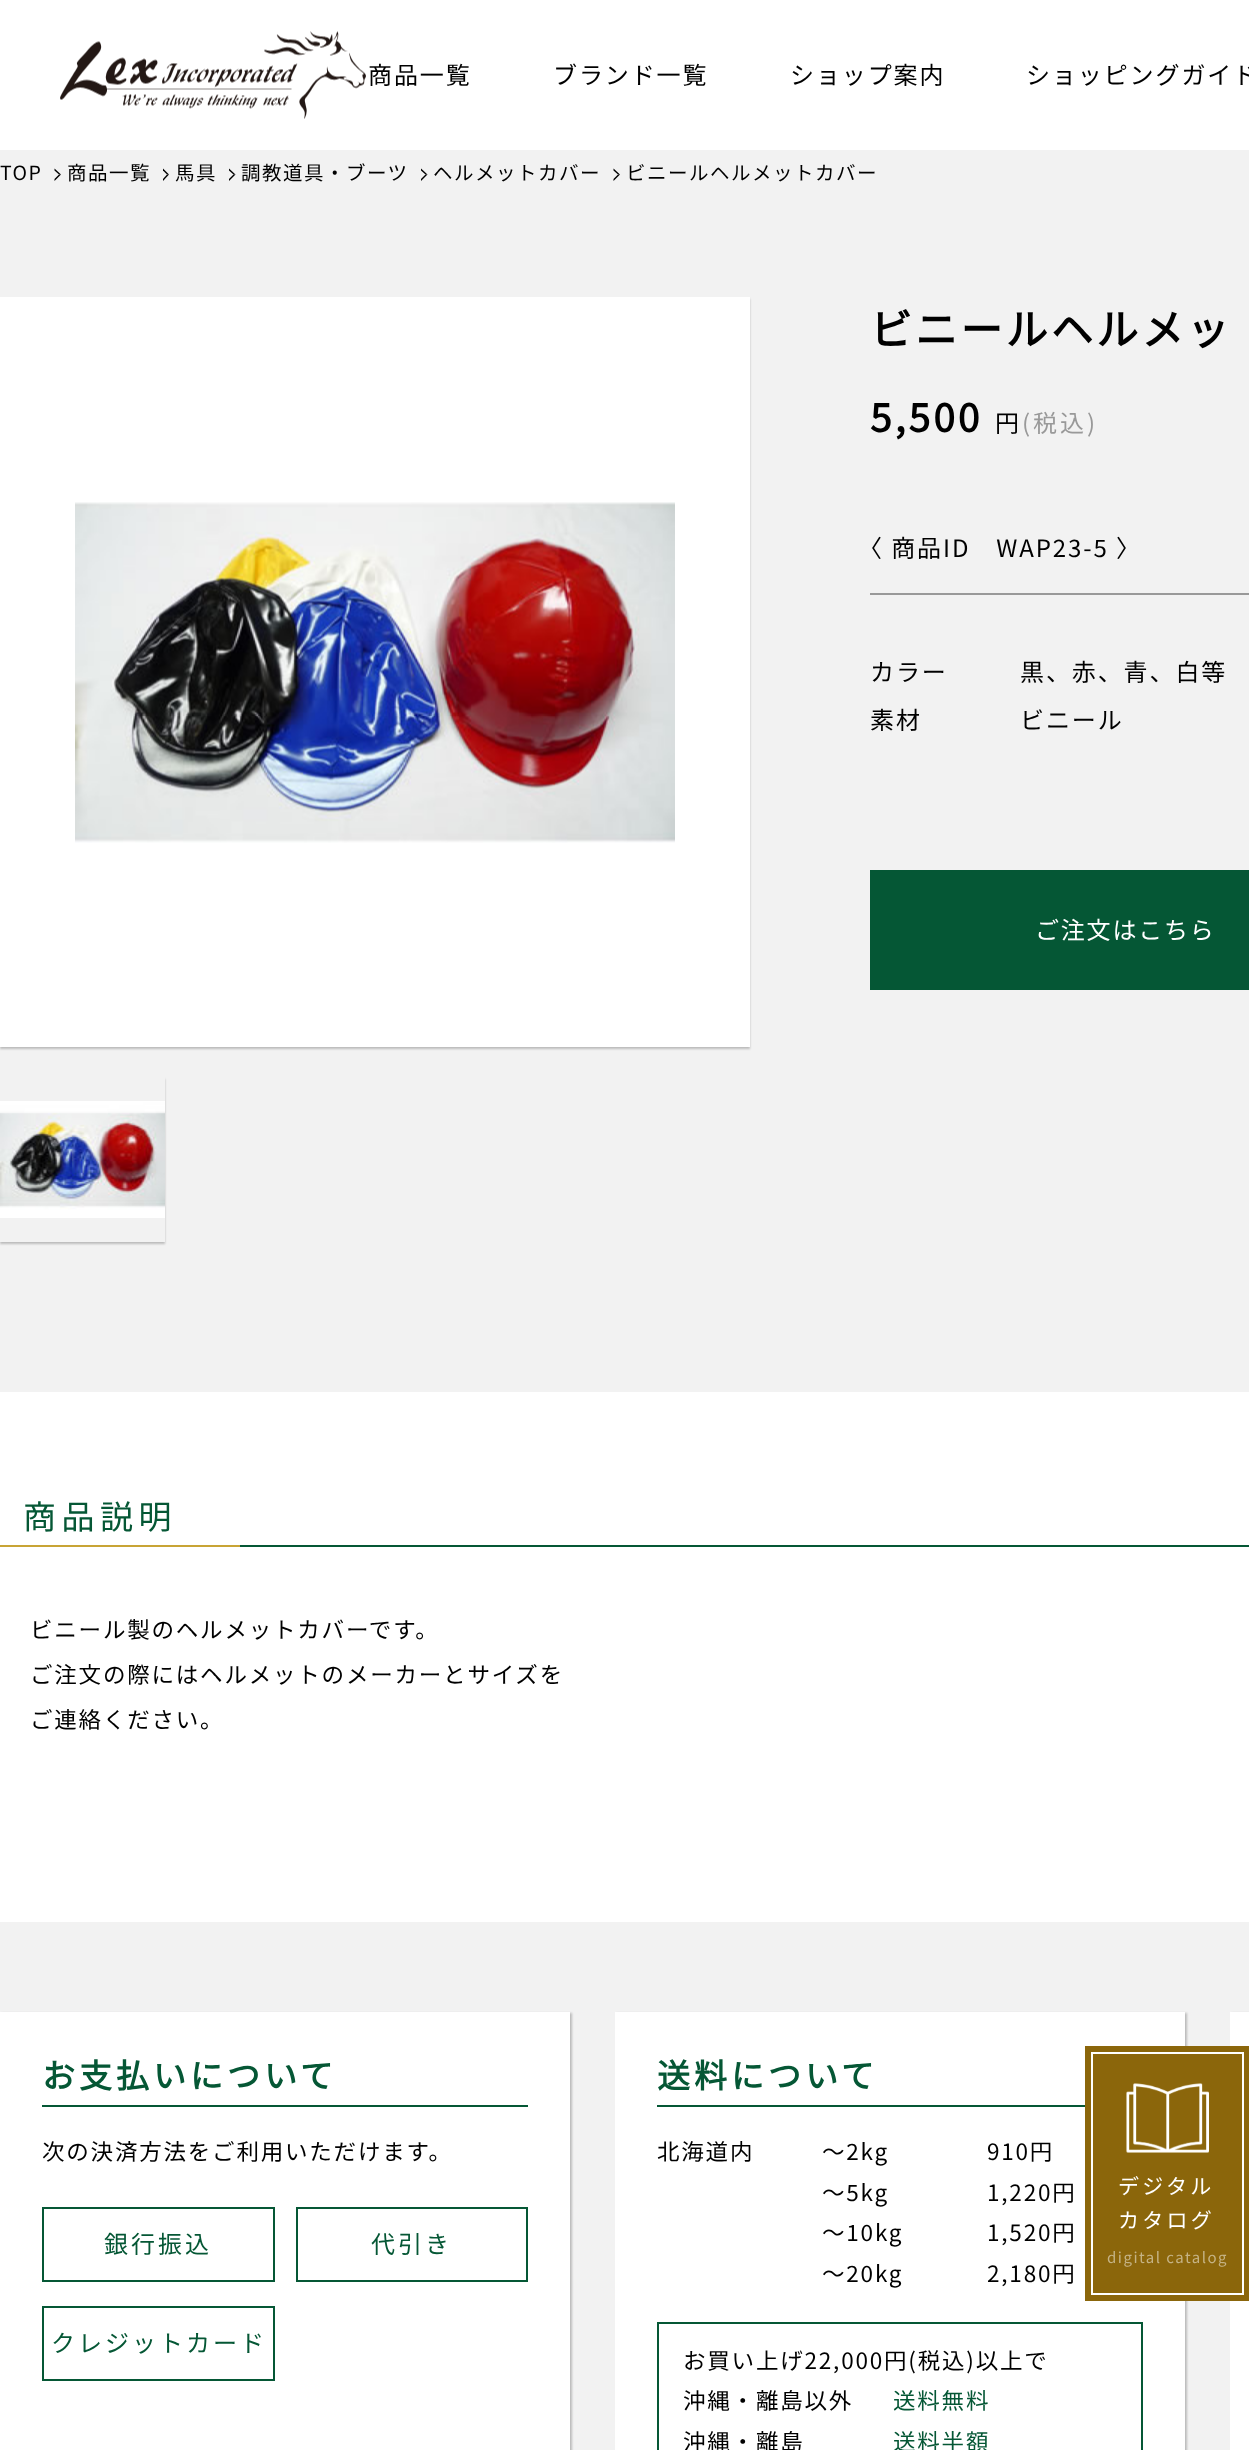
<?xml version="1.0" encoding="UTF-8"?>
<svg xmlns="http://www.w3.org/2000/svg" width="1249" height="2450">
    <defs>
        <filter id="blur1" x="-50%" y="-200%" width="200%" height="500%"><feGaussianBlur stdDeviation="1"/></filter>
        <clipPath id="clip1"><path d="M 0 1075 H 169 V 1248 H 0 Z M 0 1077 H 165 V 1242 H 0 Z" clip-rule="evenodd"/></clipPath>
    </defs>
    <rect width="100%" height="100%" fill="#FFFFFF"/>
    <image x="60" y="31" width="306" height="88" href="img_01.png"/>
    <text x="368" y="84" font-family="Noto Sans JP" font-size="24" font-weight="100" letter-spacing="1.9" fill="#000000">商品一覧</text>
    <text x="553" y="84" font-family="Noto Sans JP" font-size="24" font-weight="100" letter-spacing="1.9" fill="#000000">ブランド一覧</text>
    <text x="790" y="84" font-family="Noto Sans JP" font-size="24" font-weight="100" letter-spacing="1.9" fill="#000000">ショップ案内</text>
    <text x="1026" y="84" font-family="Noto Sans JP" font-size="24" font-weight="100" letter-spacing="1.9" fill="#000000">ショッピングガイド</text>
    <rect x="0" y="1922" width="1249" height="528" fill="#F2F2F2"/>
    <rect x="617" y="2013" width="570" height="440" fill="#BBBBBB" filter="url(#blur1)"/>
    <rect x="615" y="2012" width="570" height="438" fill="#FFFFFF"/>
    <rect x="1232" y="2013" width="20" height="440" fill="#BBBBBB" filter="url(#blur1)"/>
    <rect x="1230" y="2012" width="19" height="438" fill="#FFFFFF"/>
    <rect x="1085" y="2046" width="164" height="255" fill="#8B660B"/>
    <image x="1126" y="2083" width="83" height="70" href="img_02.png"/>
    <rect x="1092" y="2053" width="151" height="241" fill="none" stroke="#FFFFFF" stroke-width="2"/>
    <text font-family="Noto Sans JP" font-size="21" font-weight="100" letter-spacing="3.25" fill="#FFFFFF">
        <tspan x="1118" y="2194">デジタル</tspan>
        <tspan x="1118" y="2228">カタログ</tspan>
    </text>
    <text x="1107" y="2263" font-family="Noto Sans JP" font-size="15" font-weight="100" letter-spacing="1.5" fill="#C5B385">digital catalog</text>
    <rect x="0" y="150" width="1249" height="1242" fill="#F2F2F2"/>
    <text x="0" y="180" font-family="Noto Sans JP" font-size="19.5" font-weight="100" letter-spacing="1.5" fill="#000000">TOP</text>
    <path d="M 54.5 168.5 L 61 174.5 H 59 L 54.5 170.5 Z" fill="#000000"/>
    <path d="M 61 174.5 L 54.5 181 V 179 L 59 174.5 Z" fill="#000000"/>
    <text x="67" y="180" font-family="Noto Sans JP" font-size="19.5" font-weight="100" letter-spacing="1.5" fill="#000000">商品一覧</text>
    <path d="M 163 168.5 L 169 174.5 H 167 L 163 170.5 Z" fill="#000000"/>
    <path d="M 169 174.5 L 163 181 V 179 L 167 174.5 Z" fill="#000000"/>
    <text x="175" y="180" font-family="Noto Sans JP" font-size="19.5" font-weight="100" letter-spacing="1.5" fill="#000000">馬具</text>
    <path d="M 229 168.5 L 235.5 174.5 H 233.5 L 229 170.5 Z" fill="#000000"/>
    <path d="M 235.5 174.5 L 229 181 V 179 L 233.5 174.5 Z" fill="#000000"/>
    <text x="241" y="180" font-family="Noto Sans JP" font-size="19.5" font-weight="100" letter-spacing="1.5" fill="#000000">調教道具・ブーツ</text>
    <path d="M 421 168.5 L 427.5 174.5 H 425.5 L 421 170.5 Z" fill="#000000"/>
    <path d="M 427.5 174.5 L 421 181 V 179 L 425.5 174.5 Z" fill="#000000"/>
    <text x="433" y="180" font-family="Noto Sans JP" font-size="19.5" font-weight="100" letter-spacing="1.5" fill="#000000">ヘルメットカバー</text>
    <path d="M 613.5 168.5 L 620 174.5 H 618 L 613.5 170.5 Z" fill="#000000"/>
    <path d="M 620 174.5 L 613.5 181 V 179 L 618 174.5 Z" fill="#000000"/>
    <text x="626" y="180" font-family="Noto Sans JP" font-size="19.5" font-weight="100" letter-spacing="1.5" fill="#000000">ビニールヘルメットカバー</text>
    <rect x="0" y="299" width="750" height="750" fill="#BBBBBB" filter="url(#blur1)"/>
    <rect x="0" y="297" width="750" height="750" fill="#FFFFFF"/>
    <image x="75" y="502" width="600" height="341" href="img_03.png"/>
    <g clip-path="url(#clip1)">
        <rect x="0" y="1079" width="165" height="165" fill="#BBBBBB" filter="url(#blur1)"/>
    </g>
    <image x="0" y="1101" width="165" height="117" href="img_04.png"/>
    <text x="870" y="345" font-family="Noto Sans JP" font-size="42" font-weight="700" letter-spacing="3.25" fill="#000000">ビニールヘルメッ</text>
    <text x="870" y="432" font-family="Noto Sans JP" font-size="39" font-weight="700" letter-spacing="3" fill="#000000">5,500</text>
    <text x="995" y="432" font-family="Noto Sans JP" font-size="24" font-weight="100" letter-spacing="3" fill="#000000">円</text>
    <text x="1022" y="432" font-family="Noto Sans JP" font-size="24" font-weight="100" letter-spacing="3" fill="#999999">(税込)</text>
    <rect x="870" y="593" width="379" height="2" fill="#999999"/>
    <text x="858" y="557" font-family="Noto Sans JP" font-size="24" font-weight="100" letter-spacing="1.9" fill="#000000">〈 商品ID　WAP23-5 〉</text>
    <text x="870" y="681" font-family="Noto Sans JP" font-size="24" font-weight="100" letter-spacing="1.9" fill="#000000">カラー</text>
    <text x="1020" y="681" font-family="Noto Sans JP" font-size="24" font-weight="100" letter-spacing="1.9" fill="#000000">黒、赤、青、白等</text>
    <text x="870" y="729" font-family="Noto Sans JP" font-size="24" font-weight="100" letter-spacing="1.9" fill="#000000">素材</text>
    <text x="1020" y="729" font-family="Noto Sans JP" font-size="24" font-weight="100" letter-spacing="1.9" fill="#000000">ビニール</text>
    <rect x="870" y="870" width="379" height="120" fill="#055735"/>
    <text x="1035" y="939" font-family="Noto Sans JP" font-size="24" font-weight="100" letter-spacing="1.8" fill="#FFFFFF">ご注文はこちら</text>
    <rect x="240" y="1545" width="1009" height="2" fill="#055735"/>
    <text x="23" y="1529" font-family="Noto Sans JP" font-size="33" font-weight="100" letter-spacing="5.5" fill="#055735">商品説明</text>
    <rect x="0" y="1545" width="240" height="2" fill="#C8A435"/>
    <text x="30" y="1638" font-family="Noto Sans JP" font-size="22.5" font-weight="100" letter-spacing="1.8" fill="#000000">ビニール製のヘルメットカバーです。</text>
    <text x="30" y="1683" font-family="Noto Sans JP" font-size="22.5" font-weight="100" letter-spacing="1.8" fill="#000000">ご注文の際にはヘルメットのメーカーとサイズを</text>
    <text x="30" y="1728" font-family="Noto Sans JP" font-size="22.5" font-weight="100" letter-spacing="1.8" fill="#000000">ご連絡ください。</text>
    <rect x="2" y="2013" width="570" height="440" fill="#BBBBBB" filter="url(#blur1)"/>
    <rect x="0" y="2012" width="570" height="438" fill="#FFFFFF"/>
    <rect x="42" y="2105" width="486" height="2" fill="#055735"/>
    <text x="42" y="2088" font-family="Noto Sans JP" font-size="33" font-weight="700" letter-spacing="4" fill="#055735">お支払いについて</text>
    <text x="42" y="2160" font-family="Noto Sans JP" font-size="22.5" font-weight="100" letter-spacing="1.8" fill="#000000">次の決済方法をご利用いただけます。</text>
    <rect x="43" y="2208" width="231" height="73" fill="none" stroke="#055735" stroke-width="2"/>
    <text x="104" y="2253" font-family="Noto Sans JP" font-size="24" font-weight="100" letter-spacing="3" fill="#055735">銀行振込</text>
    <rect x="297" y="2208" width="230" height="73" fill="none" stroke="#055735" stroke-width="2"/>
    <text x="371" y="2253" font-family="Noto Sans JP" font-size="24" font-weight="100" letter-spacing="3" fill="#055735">代引き</text>
    <rect x="43" y="2307" width="231" height="73" fill="none" stroke="#055735" stroke-width="2"/>
    <text x="51" y="2352" font-family="Noto Sans JP" font-size="24" font-weight="100" letter-spacing="3" fill="#055735">クレジットカード</text>
    <rect x="657" y="2105" width="428" height="2" fill="#055735"/>
    <text x="657" y="2088" font-family="Noto Sans JP" font-size="33" font-weight="700" letter-spacing="4" fill="#055735">送料について</text>
    <text x="657" y="2160" font-family="Noto Sans JP" font-size="22.5" font-weight="100" letter-spacing="1.8" fill="#000000">北海道内</text>
    <text x="822" y="2160" font-family="Noto Sans JP" font-size="22.5" font-weight="100" letter-spacing="1.8" fill="#000000">～2kg</text>
    <text x="987" y="2160" font-family="Noto Sans JP" font-size="22.5" font-weight="100" letter-spacing="1.8" fill="#000000">910円</text>
    <text x="822" y="2201" font-family="Noto Sans JP" font-size="22.5" font-weight="100" letter-spacing="1.8" fill="#000000">～5kg</text>
    <text x="987" y="2201" font-family="Noto Sans JP" font-size="22.5" font-weight="100" letter-spacing="1.8" fill="#000000">1,220円</text>
    <text x="822" y="2241" font-family="Noto Sans JP" font-size="22.5" font-weight="100" letter-spacing="1.8" fill="#000000">～10kg</text>
    <text x="987" y="2241" font-family="Noto Sans JP" font-size="22.5" font-weight="100" letter-spacing="1.8" fill="#000000">1,520円</text>
    <text x="822" y="2282" font-family="Noto Sans JP" font-size="22.5" font-weight="100" letter-spacing="1.8" fill="#000000">～20kg</text>
    <text x="987" y="2282" font-family="Noto Sans JP" font-size="22.5" font-weight="100" letter-spacing="1.8" fill="#000000">2,180円</text>
    <rect x="658" y="2323" width="484" height="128" fill="none" stroke="#055735" stroke-width="2"/>
    <text font-family="Noto Sans JP" font-size="22.5" font-weight="100" letter-spacing="1.8" fill="#000000">
        <tspan x="683" y="2369">お買い上げ22,000円(税込)以上で</tspan>
        <tspan x="683" y="2409">沖縄・離島以外</tspan>
    </text>
    <text x="893" y="2409" font-family="Noto Sans JP" font-size="22.5" font-weight="100" letter-spacing="1.8" fill="#055735">送料無料</text>
    <text x="683" y="2450" font-family="Noto Sans JP" font-size="22.5" font-weight="100" letter-spacing="1.8" fill="#000000">沖縄・離島</text>
    <text x="893" y="2450" font-family="Noto Sans JP" font-size="22.5" font-weight="100" letter-spacing="1.8" fill="#055735">送料半額</text>
</svg>
